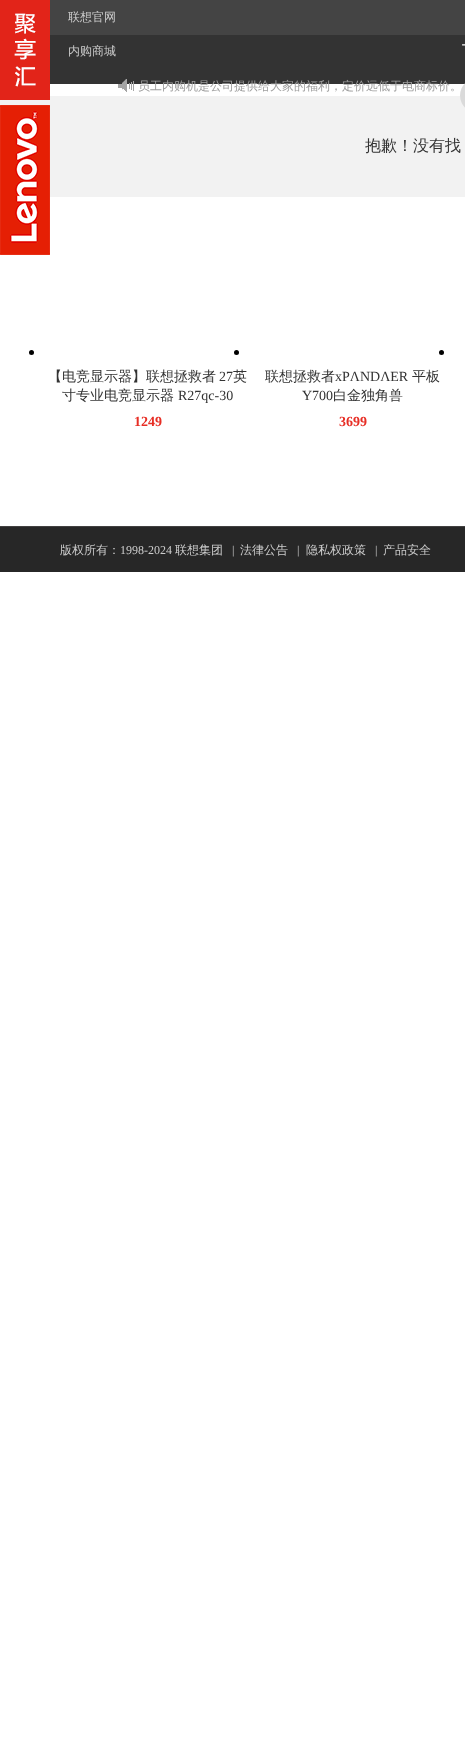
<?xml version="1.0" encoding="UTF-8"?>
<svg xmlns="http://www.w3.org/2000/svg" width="465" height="1756">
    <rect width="100%" height="100%" fill="#FFFFFF"/>
    <rect x="0" y="96" width="465" height="101" fill="#F2F2F2"/>
    <image x="0" y="0" width="50" height="100" href="img_01.png"/>
    <image x="0" y="105" width="50" height="150" href="img_02.png"/>
    <rect x="50" y="35" width="415" height="49" fill="#333333"/>
    <rect x="50" y="0" width="415" height="35" fill="#444444"/>
    <text x="68" y="21" font-family="WenQuanYi Zen Hei" font-size="12" font-weight="500" fill="#CCCCCC">联想官网</text>
    <text x="68" y="55" font-family="WenQuanYi Zen Hei" font-size="12" font-weight="500" fill="#CCCCCC">内购商城</text>
    <image x="118" y="79" width="16" height="13" href="img_03.png"/>
    <text x="138" y="90" font-family="WenQuanYi Zen Hei" font-size="12" font-weight="500" fill="#9E9E9E">员工内购机是公司提供给大家的福利，定价远低于电商标价。</text>
    <image x="462" y="44" width="3" height="2" href="img_04.png"/>
    <image x="460" y="83" width="5" height="25" href="img_05.png"/>
    <text x="365" y="151" font-family="WenQuanYi Zen Hei" font-size="16" font-weight="500" fill="#333333">抱歉！没有找</text>
    <circle cx="441.5" cy="352.5" r="2.5" fill="#000000"/>
    <circle cx="31.5" cy="352.5" r="2.5" fill="#000000"/>
    <text x="48" y="381" font-family="WenQuanYi Zen Hei" font-size="14" font-weight="500" fill="#333333">【电竞显示器】联想拯救者</text>
    <text x="219" y="381" font-family="Liberation Serif" font-size="14" fill="#333333">27</text>
    <text x="233" y="381" font-family="WenQuanYi Zen Hei" font-size="14" font-weight="500" fill="#333333">英</text>
    <text x="62" y="400" font-family="WenQuanYi Zen Hei" font-size="14" font-weight="500" fill="#333333">寸专业电竞显示器</text>
    <text x="178" y="400" font-family="Liberation Serif" font-size="14" fill="#333333">R27qc-30</text>
    <text x="134" y="426" font-family="Liberation Serif" font-size="14" font-weight="700" fill="#E72E25">1249</text>
    <circle cx="236.5" cy="352.5" r="2.5" fill="#000000"/>
    <text x="265" y="381" font-family="WenQuanYi Zen Hei" font-size="14" font-weight="500" fill="#333333">联想拯救者</text>
    <text x="335" y="381" font-family="Liberation Serif" font-size="14" fill="#333333">xPΛNDΛER</text>
    <text x="412" y="381" font-family="WenQuanYi Zen Hei" font-size="14" font-weight="500" fill="#333333">平板</text>
    <text x="302" y="400" font-family="Liberation Serif" font-size="14" fill="#333333">Y700</text>
    <text x="333" y="400" font-family="WenQuanYi Zen Hei" font-size="14" font-weight="500" fill="#333333">白金独角兽</text>
    <text x="339" y="426" font-family="Liberation Serif" font-size="14" font-weight="700" fill="#E72E25">3699</text>
    <rect x="0" y="527" width="465" height="45" fill="#272727"/>
    <rect x="0" y="526" width="465" height="1" fill="#424141"/>
    <text x="60" y="554" font-family="WenQuanYi Zen Hei" font-size="12" font-weight="500" fill="#CCCCCC">版权所有：</text>
    <text x="120" y="554" font-family="Liberation Serif" font-size="12" fill="#CCCCCC">1998-2024</text>
    <text x="175" y="554" font-family="WenQuanYi Zen Hei" font-size="12" font-weight="500" fill="#CCCCCC">联想集团</text>
    <text x="232" y="554" font-family="Liberation Serif" font-size="12" fill="#CCCCCC">|</text>
    <text x="240" y="554" font-family="WenQuanYi Zen Hei" font-size="12" font-weight="500" fill="#CCCCCC">法律公告</text>
    <text x="297" y="554" font-family="Liberation Serif" font-size="12" fill="#CCCCCC">|</text>
    <text x="306" y="554" font-family="WenQuanYi Zen Hei" font-size="12" font-weight="500" fill="#CCCCCC">隐私权政策</text>
    <text x="375" y="554" font-family="Liberation Serif" font-size="12" fill="#CCCCCC">|</text>
    <text x="383" y="554" font-family="WenQuanYi Zen Hei" font-size="12" font-weight="500" fill="#CCCCCC">产品安全</text>
</svg>
